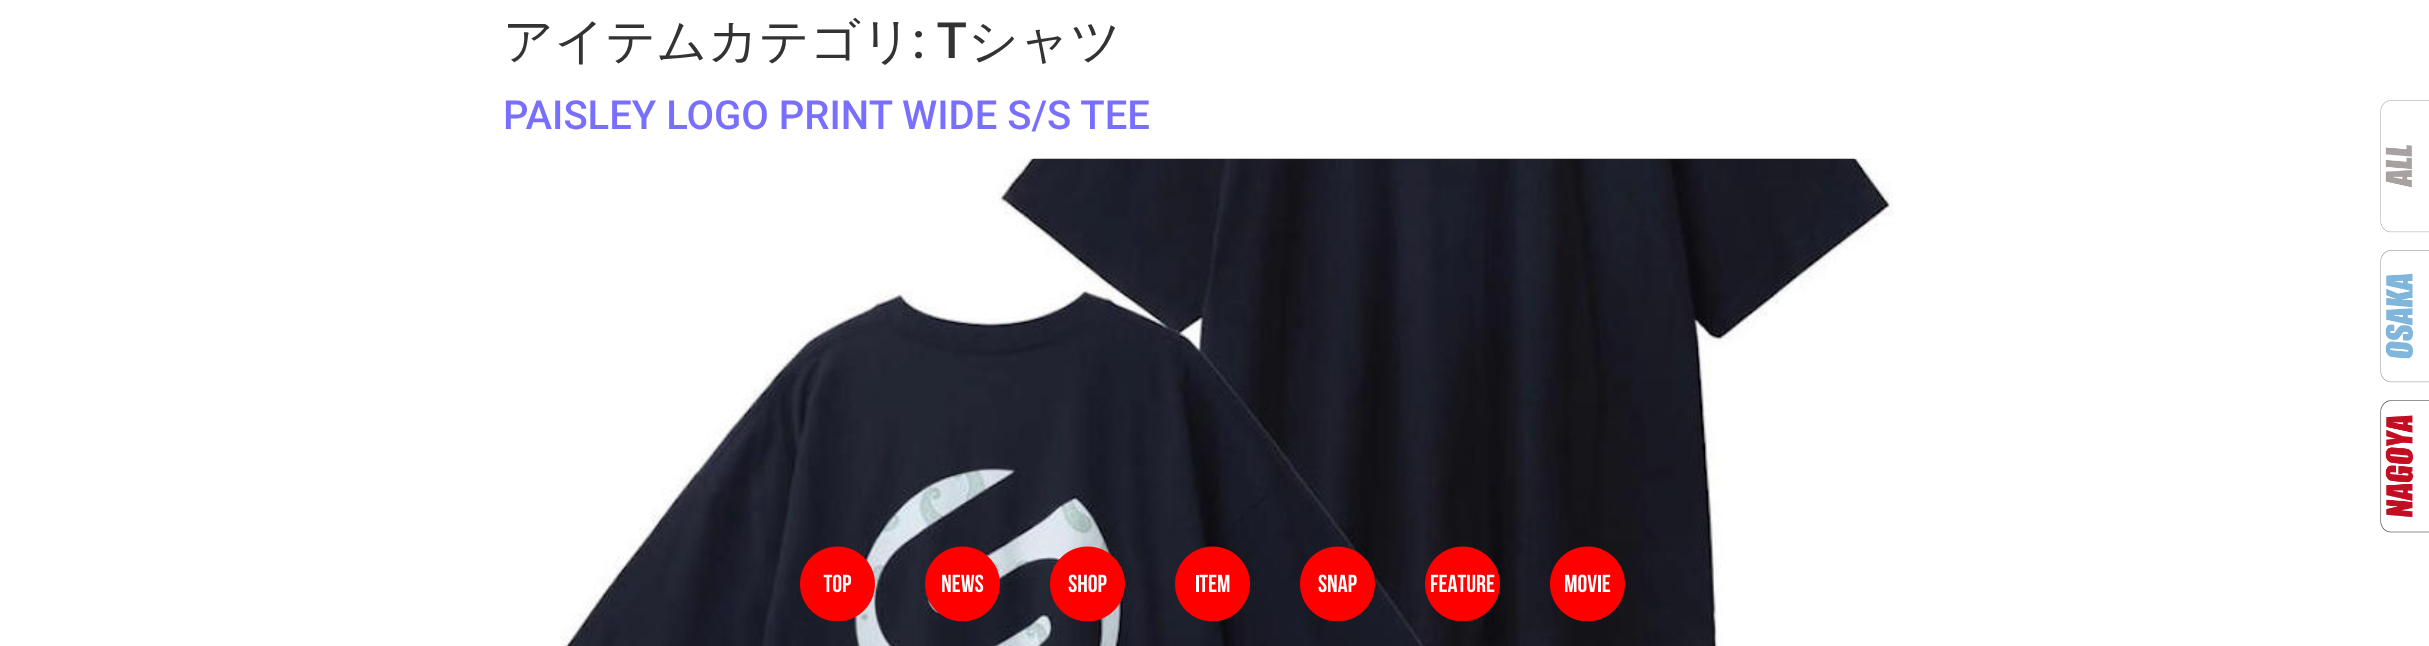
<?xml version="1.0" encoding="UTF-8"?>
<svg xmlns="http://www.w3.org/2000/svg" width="2429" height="646">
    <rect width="100%" height="100%" fill="#FFFFFF"/>
    <text x="503" y="58" font-family="WenQuanYi Zen Hei" font-size="50" font-weight="500" fill="#333333">アイテムカテゴリ</text>
    <text x="912" y="58" font-family="Roboto" font-size="50" font-weight="500" fill="#333333">: T</text>
    <text x="968" y="58" font-family="WenQuanYi Zen Hei" font-size="50" font-weight="500" fill="#333333">シャツ</text>
    <text x="503" y="129" font-family="Roboto" font-size="40" font-weight="500" fill="#796FFF">PAISLEY LOGO PRINT WIDE S/S TEE</text>
    <image x="559" y="158" width="1335" height="488" href="img_01.png"/>
    <image x="2380" y="100" width="49" height="133" href="img_02.png"/>
    <image x="2380" y="250" width="49" height="133" href="img_03.png"/>
    <image x="2380" y="400" width="49" height="133" href="img_04.png"/>
    <image x="800" y="546" width="75" height="75" href="img_05.png"/>
    <image x="925" y="546" width="75" height="75" href="img_06.png"/>
    <image x="1050" y="546" width="75" height="75" href="img_07.png"/>
    <image x="1175" y="546" width="75" height="75" href="img_08.png"/>
    <image x="1300" y="546" width="75" height="75" href="img_09.png"/>
    <image x="1425" y="546" width="75" height="75" href="img_10.png"/>
    <image x="1550" y="546" width="75" height="75" href="img_11.png"/>
</svg>
